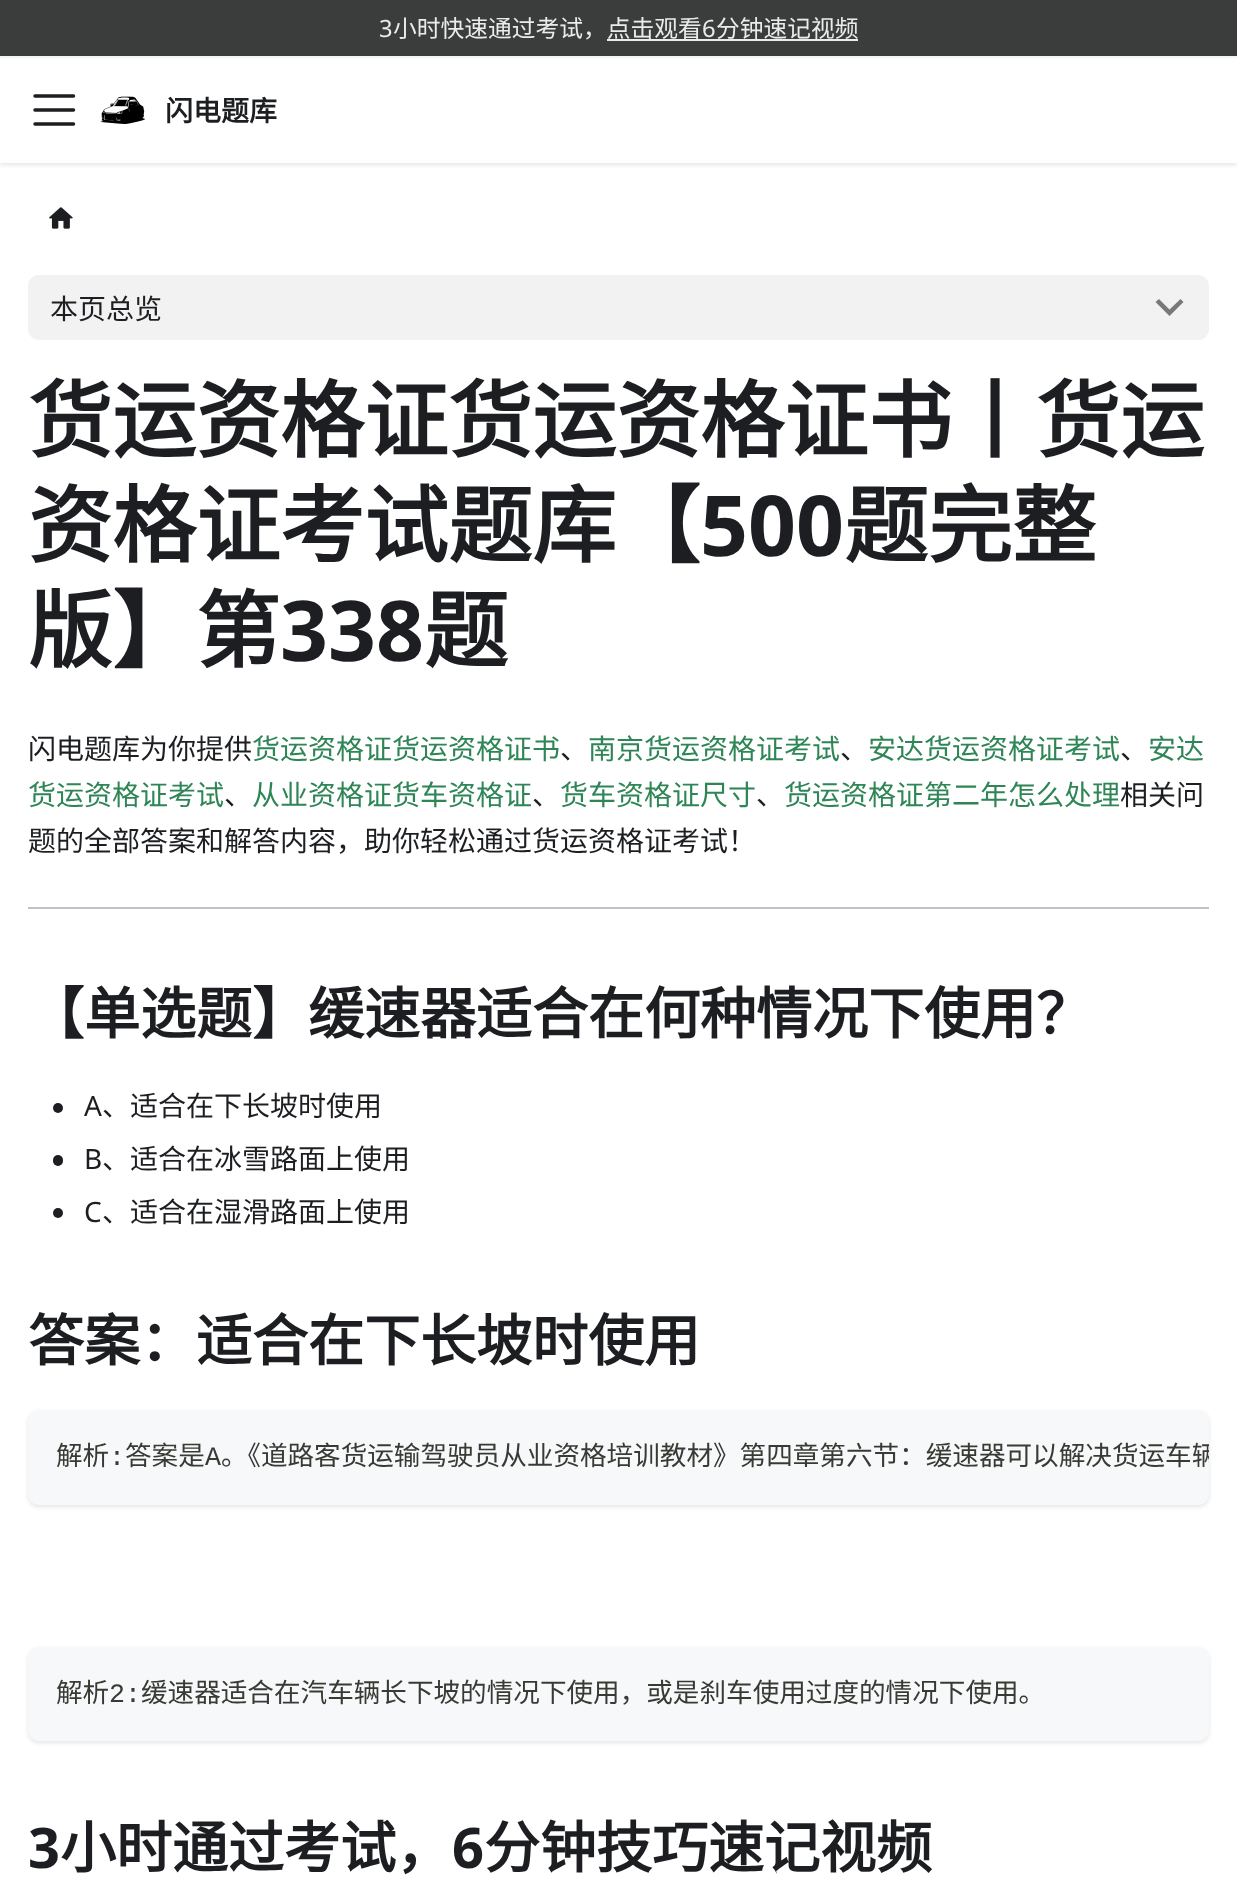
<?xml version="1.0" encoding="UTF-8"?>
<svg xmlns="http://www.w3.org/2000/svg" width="1237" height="1898">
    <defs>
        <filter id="blur1" x="-50%" y="-200%" width="200%" height="500%"><feGaussianBlur stdDeviation="2"/></filter>
        <clipPath id="clip1"><rect x="28" y="1411" width="1181" height="94" rx="11"/></clipPath>
    </defs>
    <rect width="100%" height="100%" fill="#FFFFFF"/>
    <rect x="0" y="0" width="1237" height="56" fill="#3B3C3C"/>
    <rect x="0" y="56" width="1237" height="2" fill="#F5F6F7"/>
    <text x="379" y="37" font-family="Noto Sans" font-size="23.75" fill="#ECEBEB">3</text>
    <text x="393" y="37" font-family="Noto Sans CJK SC" font-size="23.75" fill="#ECEBEB">小时快速通过考试，点击观看</text>
    <text x="702" y="37" font-family="Noto Sans" font-size="23.75" fill="#ECEBEB">6</text>
    <rect x="607" y="39" width="251" height="2" fill="#ECEBEB"/>
    <text x="716" y="37" font-family="Noto Sans CJK SC" font-size="23.75" fill="#ECEBEB">分钟速记视频</text>
    <rect x="0" y="60" width="1237" height="105" fill="#000000" fill-opacity="0.1" filter="url(#blur1)"/>
    <rect x="0" y="58" width="1237" height="105" fill="#FFFFFF"/>
    <path d="M 35 96 H 73.5 M 35 110 H 73.5 M 35 124 H 73.5" fill="none" stroke="#1C1E21" stroke-width="3.5" stroke-linecap="round"/>
    <image x="100" y="96" width="45" height="28" href="img_01.png"/>
    <text x="165" y="121" font-family="Noto Sans CJK SC" font-size="28" font-weight="700" fill="#1C1E21">闪电题库</text>
    <image x="49" y="207" width="24" height="22" href="img_02.png"/>
    <rect x="28" y="275" width="1181" height="65" rx="11" fill="#F2F2F2"/>
    <text x="50" y="319" font-family="Noto Sans CJK SC" font-size="28" fill="#1C1E21">本页总览</text>
    <path d="M 1180.5 299 L 1169.5 309.5 L 1159 299 L 1155.5 302 L 1169.5 316 L 1183.5 302 Z" fill="#797979"/>
    <text font-family="Noto Sans CJK SC" font-size="84" font-weight="700" fill="#1C1E21">
        <tspan x="28" y="451">货运资格证货运资格证书丨货运</tspan>
        <tspan x="28" y="556">资格证考试题库【</tspan>
    </text>
    <text x="700" y="556" font-family="Noto Sans" font-size="84" font-weight="700" fill="#1C1E21">500</text>
    <text x="844" y="556" font-family="Noto Sans CJK SC" font-size="84" font-weight="700" fill="#1C1E21">题完整</text>
    <text x="28" y="661" font-family="Noto Sans CJK SC" font-size="84" font-weight="700" fill="#1C1E21">版】第</text>
    <text x="280" y="661" font-family="Noto Sans" font-size="84" font-weight="700" fill="#1C1E21">338</text>
    <text x="424" y="661" font-family="Noto Sans CJK SC" font-size="84" font-weight="700" fill="#1C1E21">题</text>
    <text x="28" y="759" font-family="Noto Sans CJK SC" font-size="28" fill="#1C1E21">闪电题库为你提供</text>
    <text x="252" y="759" font-family="Noto Sans CJK SC" font-size="28" fill="#2E8555">货运资格证货运资格证书</text>
    <text x="560" y="759" font-family="Noto Sans CJK SC" font-size="28" fill="#1C1E21">、</text>
    <text x="588" y="759" font-family="Noto Sans CJK SC" font-size="28" fill="#2E8555">南京货运资格证考试</text>
    <text x="840" y="759" font-family="Noto Sans CJK SC" font-size="28" fill="#1C1E21">、</text>
    <text x="868" y="759" font-family="Noto Sans CJK SC" font-size="28" fill="#2E8555">安达货运资格证考试</text>
    <text x="1120" y="759" font-family="Noto Sans CJK SC" font-size="28" fill="#1C1E21">、</text>
    <text x="1148" y="759" font-family="Noto Sans CJK SC" font-size="28" fill="#2E8555">安达</text>
    <text x="28" y="805" font-family="Noto Sans CJK SC" font-size="28" fill="#2E8555">货运资格证考试</text>
    <text x="224" y="805" font-family="Noto Sans CJK SC" font-size="28" fill="#1C1E21">、</text>
    <text x="252" y="805" font-family="Noto Sans CJK SC" font-size="28" fill="#2E8555">从业资格证货车资格证</text>
    <text x="532" y="805" font-family="Noto Sans CJK SC" font-size="28" fill="#1C1E21">、</text>
    <text x="560" y="805" font-family="Noto Sans CJK SC" font-size="28" fill="#2E8555">货车资格证尺寸</text>
    <text x="756" y="805" font-family="Noto Sans CJK SC" font-size="28" fill="#1C1E21">、</text>
    <text x="784" y="805" font-family="Noto Sans CJK SC" font-size="28" fill="#2E8555">货运资格证第二年怎么处理</text>
    <text x="1120" y="805" font-family="Noto Sans CJK SC" font-size="28" fill="#1C1E21">相关问</text>
    <text x="28" y="851" font-family="Noto Sans CJK SC" font-size="28" fill="#1C1E21">题的全部答案和解答内容，助你轻松通过货运资格证考试！</text>
    <rect x="28" y="907" width="1181" height="2" fill="#BEC3C9"/>
    <text x="28" y="1034" font-family="Noto Sans CJK SC" font-size="56" font-weight="700" fill="#1C1E21">【单选题】缓速器适合在何种情况下使用？</text>
    <circle cx="58" cy="1108" r="5" fill="#1C1E21"/>
    <text x="84" y="1116" font-family="Noto Sans" font-size="28" fill="#1C1E21">A</text>
    <text x="102" y="1116" font-family="Noto Sans CJK SC" font-size="28" fill="#1C1E21">、适合在下长坡时使用</text>
    <rect x="53" y="1155" width="10" height="11" rx="5" fill="#1C1E21"/>
    <text x="84" y="1169" font-family="Noto Sans" font-size="28" fill="#1C1E21">B</text>
    <text x="102" y="1169" font-family="Noto Sans CJK SC" font-size="28" fill="#1C1E21">、适合在冰雪路面上使用</text>
    <circle cx="58" cy="1213" r="5" fill="#1C1E21"/>
    <text x="84" y="1222" font-family="Noto Sans" font-size="28" fill="#1C1E21">C</text>
    <text x="102" y="1222" font-family="Noto Sans CJK SC" font-size="28" fill="#1C1E21">、适合在湿滑路面上使用</text>
    <text x="28" y="1361" font-family="Noto Sans CJK SC" font-size="56" font-weight="700" fill="#1C1E21">答案：适合在下长坡时使用</text>
    <rect x="28" y="1412" width="1181" height="95" rx="11" fill="#000000" fill-opacity="0.1" filter="url(#blur1)"/>
    <rect x="28" y="1411" width="1181" height="94" rx="11" fill="#F6F8FA"/>
    <text x="56" y="1465" font-family="Noto Sans CJK SC" font-size="26.6" fill="#393A34">解析</text>
    <text x="109" y="1465" font-family="Liberation Mono" font-size="26.6" fill="#393A34">:</text>
    <text x="125" y="1465" font-family="Noto Sans CJK SC" font-size="26.6" fill="#393A34">答案是</text>
    <text x="205" y="1465" font-family="Liberation Mono" font-size="26.6" fill="#393A34">A</text>
    <g clip-path="url(#clip1)">
        <text x="221" y="1465" font-family="Noto Sans CJK SC" font-size="26.6" fill="#393A34">。《道路客货运输驾驶员从业资格培训教材》第四章第六节：缓速器可以解决货运车辆</text>
    </g>
    <rect x="28" y="1649" width="1181" height="94" rx="11" fill="#000000" fill-opacity="0.1" filter="url(#blur1)"/>
    <rect x="28" y="1647" width="1181" height="94" rx="11" fill="#F6F8FA"/>
    <text x="56" y="1702" font-family="Noto Sans CJK SC" font-size="26.6" fill="#393A34">解析</text>
    <text x="109" y="1702" font-family="Liberation Mono" font-size="26.6" fill="#393A34">2:</text>
    <text x="141" y="1702" font-family="Noto Sans CJK SC" font-size="26.6" fill="#393A34">缓速器适合在汽车辆长下坡的情况下使用，或是刹车使用过度的情况下使用。</text>
    <text x="28" y="1868" font-family="Noto Sans" font-size="56" font-weight="700" fill="#1C1E21">3</text>
    <text x="60" y="1868" font-family="Noto Sans CJK SC" font-size="56" font-weight="700" fill="#1C1E21">小时通过考试，</text>
    <text x="452" y="1868" font-family="Noto Sans" font-size="56" font-weight="700" fill="#1C1E21">6</text>
    <text x="484" y="1868" font-family="Noto Sans CJK SC" font-size="56" font-weight="700" fill="#1C1E21">分钟技巧速记视频</text>
</svg>
